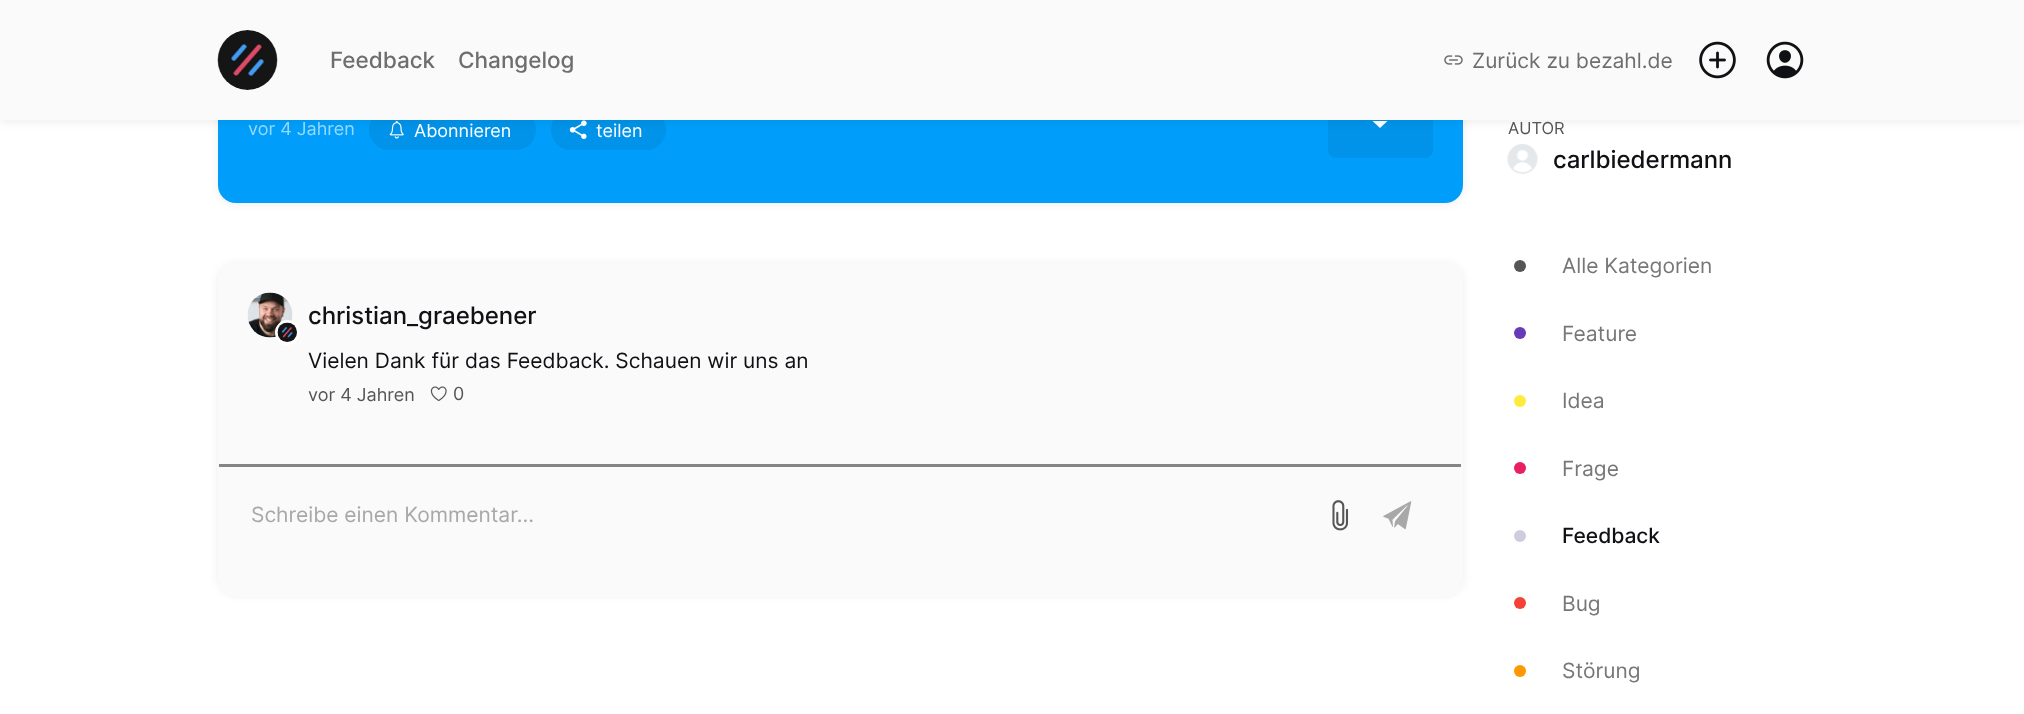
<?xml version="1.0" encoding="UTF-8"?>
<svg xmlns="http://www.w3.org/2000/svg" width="2024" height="714">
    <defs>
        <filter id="blur1" x="-50%" y="-200%" width="200%" height="500%"><feGaussianBlur stdDeviation="5"/></filter>
    </defs>
    <rect width="100%" height="100%" fill="#FFFFFF"/>
    <rect x="218" y="-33" width="1245" height="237" rx="18" fill="#000000" fill-opacity="0.07" filter="url(#blur1)"/>
    <rect x="218" y="-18" width="1245" height="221" rx="18" fill="#009EFA"/>
    <rect x="369" y="110" width="167" height="40" rx="20" fill="#0093E9"/>
    <image x="389" y="121" width="15" height="18" href="img_05.png"/>
    <rect x="551" y="110" width="115" height="40" rx="20" fill="#0093E9"/>
    <image x="569" y="120" width="18" height="19" href="img_06.png"/>
    <rect x="1328" y="23" width="105" height="135" rx="8" fill="#0093E9"/>
    <path d="M 1372.5 121 L 1380 128 L 1387.5 121 Z" fill="#FFFFFF"/>
    <rect x="0" y="2" width="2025" height="120" fill="#000000" fill-opacity="0.07" filter="url(#blur1)"/>
    <rect x="0" y="0" width="2024" height="120" fill="#FAFAFA"/>
    <image x="217" y="30" width="61" height="60" href="img_01.png"/>
    <text x="330" y="68" font-family="Inter" font-size="22.5" font-weight="500" fill="#6E6E70">Feedback</text>
    <text x="458" y="68" font-family="Inter" font-size="22.5" font-weight="500" fill="#6E6E70">Changelog</text>
    <image x="1444" y="55" width="19" height="10" href="img_02.png"/>
    <text x="1472" y="68" font-family="Inter" font-size="21" fill="#6E6E70">Zurück zu bezahl.de</text>
    <image x="1699" y="41" width="37" height="38" href="img_03.png"/>
    <image x="1766" y="41" width="38" height="38" href="img_04.png"/>
    <text x="248" y="135" font-family="Inter" font-size="18" fill="#99D8FD">vor 4 Jahren</text>
    <text x="414" y="137" font-family="Inter" font-size="18" fill="#FFFFFF">Abonnieren</text>
    <text x="596" y="137" font-family="Inter" font-size="18" fill="#FFFFFF">teilen</text>
    <rect x="218" y="264" width="1245" height="330" rx="18" fill="#000000" fill-opacity="0.07" filter="url(#blur1)"/>
    <rect x="218" y="263" width="1245" height="330" rx="18" fill="#FAFAFA"/>
    <image x="247" y="292" width="46" height="46" href="img_07.png"/>
    <circle cx="287.5" cy="332.5" r="11" fill="none" stroke="#FFFFFF" stroke-width="3"/>
    <image x="277" y="322" width="20" height="20" href="img_08.png"/>
    <text x="308" y="324" font-family="Inter" font-size="24" font-weight="500" fill="#101114">christian_graebener</text>
    <text x="308" y="368" font-family="Inter" font-size="21" fill="#101114">Vielen Dank für das Feedback. Schauen wir uns an</text>
    <text x="308" y="401" font-family="Inter" font-size="18" fill="#555555">vor 4 Jahren</text>
    <image x="430" y="386" width="17" height="15" href="img_09.png"/>
    <text x="453" y="400" font-family="Inter" font-size="18" fill="#555555">0</text>
    <path d="M 218 465 H 1463 V 581 C 1463 591 1455 599 1445 599 H 236 C 226 599 218 591 218 581 Z" fill="#FAFAFA"/>
    <path d="M 219 464 H 1461 V 579 C 1461 589 1453 597 1443 597 H 237 C 227 597 219 589 219 579 Z" fill="#858587"/>
    <path d="M 219 467 H 1461 V 582 C 1461 590.5 1454.5 597 1446 597 H 234 C 225.5 597 219 590.5 219 582 Z" fill="#FAFAFA"/>
    <text x="251" y="522" font-family="'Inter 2'" font-size="21" fill="#A8A8A8">Schreibe einen Kommentar...</text>
    <image x="1332" y="500" width="17" height="31" href="img_10.png"/>
    <image x="1383" y="501" width="29" height="29" href="img_11.png"/>
    <text x="1508" y="134" font-family="Inter" font-size="16.5" fill="#555555">AUTOR</text>
    <image x="1507" y="144" width="31" height="30" href="img_12.png"/>
    <text x="1553" y="168" font-family="Inter" font-size="24" font-weight="500" fill="#101114">carlbiedermann</text>
    <circle cx="1520" cy="266" r="6" fill="#555555"/>
    <text x="1562" y="273" font-family="Inter" font-size="21" fill="#777777">Alle Kategorien</text>
    <circle cx="1520" cy="333" r="6" fill="#673AB7"/>
    <text x="1562" y="341" font-family="Inter" font-size="21" fill="#777777">Feature</text>
    <circle cx="1520" cy="401" r="6" fill="#FFEB3B"/>
    <text x="1562" y="408" font-family="Inter" font-size="21" fill="#777777">Idea</text>
    <circle cx="1520" cy="468" r="6" fill="#E91E63"/>
    <text x="1562" y="476" font-family="Inter" font-size="21" fill="#777777">Frage</text>
    <circle cx="1520" cy="536" r="6" fill="#CFCDDD"/>
    <text x="1562" y="543" font-family="Inter" font-size="21" font-weight="500" fill="#101114">Feedback</text>
    <circle cx="1520" cy="603" r="6" fill="#F44336"/>
    <text x="1562" y="611" font-family="Inter" font-size="21" fill="#777777">Bug</text>
    <circle cx="1520" cy="671" r="6" fill="#FF9800"/>
    <text x="1562" y="678" font-family="Inter" font-size="21" fill="#777777">Störung</text>
</svg>
